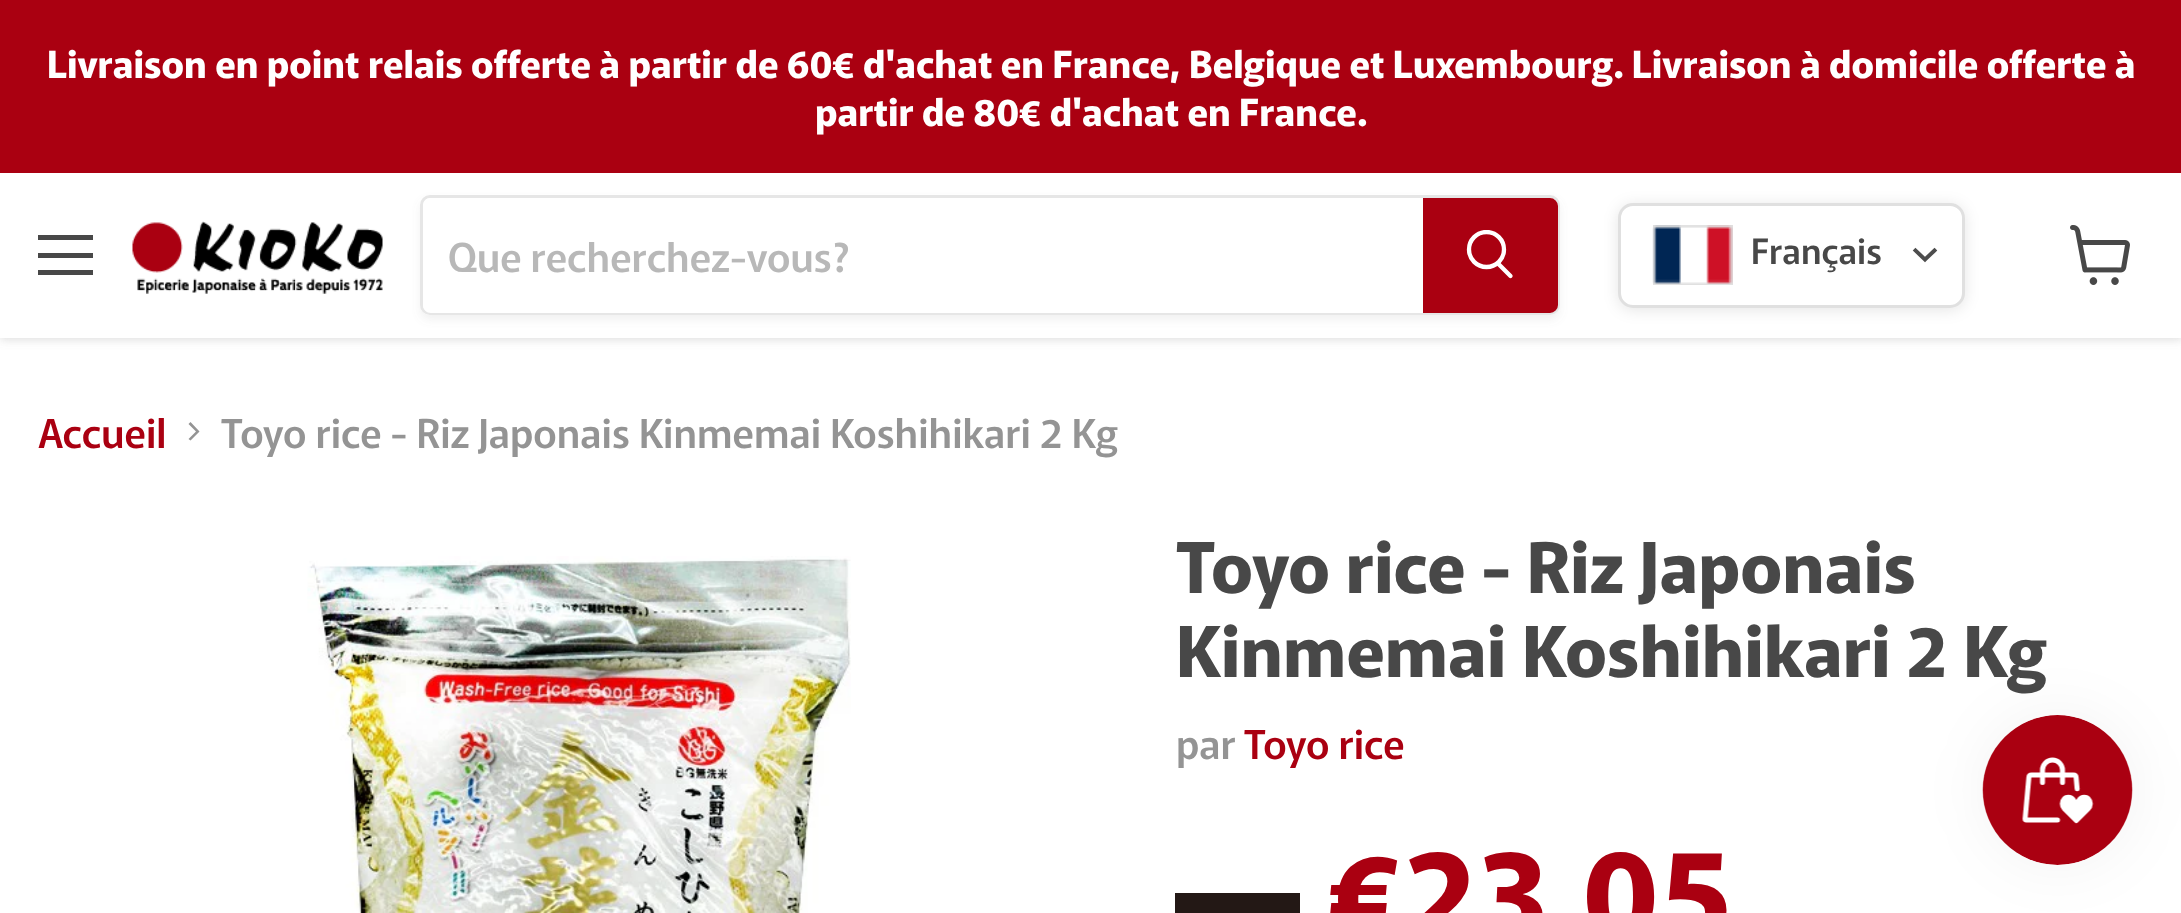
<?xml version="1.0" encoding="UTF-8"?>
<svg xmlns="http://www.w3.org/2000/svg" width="2181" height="913">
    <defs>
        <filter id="blur1" x="-50%" y="-200%" width="200%" height="500%"><feGaussianBlur stdDeviation="5"/></filter>
        <clipPath id="clip1"><path d="M 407 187 H 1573 V 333 H 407 Z M 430 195 H 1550 C 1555.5 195 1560 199.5 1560 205 V 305 C 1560 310.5 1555.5 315 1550 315 H 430 C 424.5 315 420 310.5 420 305 V 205 C 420 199.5 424.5 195 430 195 Z" clip-rule="evenodd"/></clipPath>
        <filter id="blur2" x="-50%" y="-200%" width="200%" height="500%"><feGaussianBlur stdDeviation="4"/></filter>
        <clipPath id="clip2"><rect x="1465" y="230" width="50" height="53"/></clipPath>
        <filter id="blur3" x="-50%" y="-200%" width="200%" height="500%"><feGaussianBlur stdDeviation="7.5"/></filter>
        <filter id="blur4" x="-50%" y="-200%" width="200%" height="500%"><feGaussianBlur stdDeviation="31"/></filter>
    </defs>
    <rect width="100%" height="100%" fill="#FFFFFF"/>
    <rect x="0" y="175" width="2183" height="165" fill="#808080" fill-opacity="0.25" filter="url(#blur1)"/>
    <rect x="0" y="0" width="2181" height="173" fill="#AA0011"/>
    <text x="47" y="78" font-family="Murecho" font-size="37.5" font-weight="700" fill="#FFFFFF">Livraison en point relais offerte à partir de 60€ d'achat en France, Belgique et Luxembourg. Livraison à domicile offerte à</text>
    <text x="815" y="126" font-family="Murecho" font-size="37.5" font-weight="700" fill="#FFFFFF">partir de 80€ d'achat en France.</text>
    <rect x="0" y="173" width="2181" height="165" fill="#FFFFFF"/>
    <rect x="38" y="235" width="55" height="5" fill="#484848"/>
    <rect x="38" y="253" width="55" height="5" fill="#484848"/>
    <rect x="38" y="270" width="55" height="5" fill="#484848"/>
    <image x="132" y="221" width="251" height="73" href="img_01.png"/>
    <g clip-path="url(#clip1)">
        <rect x="420" y="200" width="1140" height="120" rx="10" fill="#808080" fill-opacity="0.11" filter="url(#blur2)"/>
    </g>
    <rect x="421.5" y="196.5" width="1137" height="117" rx="8.5" fill="none" stroke="#808080" stroke-opacity="0.2" stroke-width="3"/>
    <path d="M 431 198 H 1423 V 313 H 431 C 426.5 313 423 309.5 423 305 V 206 C 423 201.5 426.5 198 431 198 Z" fill="#FFFFFF"/>
    <text x="448" y="272" font-family="Murecho" font-size="40" font-weight="500" fill="#B8B8B8">Que recherchez-vous?</text>
    <path d="M 1424.5 199.5 H 1550 C 1553.5 199.5 1556.5 202.5 1556.5 206 V 305 C 1556.5 308.5 1553.5 311.5 1550 311.5 H 1424.5 Z" fill="#AA0011" stroke="#AA0011" stroke-width="3"/>
    <path d="M 1510.5 276 L 1498.5 264" fill="none" stroke="#FFFFFF" stroke-width="4.3" stroke-linecap="round"/>
    <g clip-path="url(#clip2)">
        <circle cx="1486.5" cy="249.5" r="17.5" fill="none" stroke="#FFFFFF" stroke-width="4.3"/>
    </g>
    <rect x="1618" y="205" width="347" height="105" rx="15" fill="#000000" fill-opacity="0.1" filter="url(#blur3)"/>
    <rect x="1619.5" y="204.5" width="344" height="102" rx="13.5" fill="#FFFFFF" stroke="#E0E0E0" stroke-width="3"/>
    <rect x="1654.5" y="226.5" width="77" height="57" fill="none" stroke="#E0E0E0" stroke-width="3"/>
    <image x="1652" y="225" width="81" height="59" href="img_02.png"/>
    <text x="1751" y="264" font-family="Murecho" font-size="35" font-weight="500" fill="#484848">Français</text>
    <path d="M 1925 259.5 L 1934.5 250.5 M 1925 259.5 L 1915.5 250.5" fill="none" stroke="#4D4D4D" stroke-width="3.9" stroke-linecap="square"/>
    <image x="2070" y="225" width="60" height="60" href="img_03.png"/>
    <text x="38" y="448" font-family="Murecho" font-size="40" font-weight="500" fill="#AA0011">Accueil</text>
    <path d="M 188.5 439 L 190.5 440.5 L 199.5 431.5 L 190.5 422 L 188.5 424 L 196 431.5 Z" fill="#949494" fill-rule="evenodd"/>
    <text x="221" y="448" font-family="Murecho" font-size="40" font-weight="500" fill="#949494">Toyo rice - Riz Japonais Kinmemai Koshihikari 2 Kg</text>
    <image x="307" y="556" width="544" height="357" href="img_04.png"/>
    <text font-family="Murecho" font-size="70" font-weight="700" fill="#484848">
        <tspan x="1176" y="593">Toyo rice - Riz Japonais</tspan>
        <tspan x="1176" y="677">Kinmemai Koshihikari 2 Kg</tspan>
    </text>
    <text x="1176" y="759" font-family="Murecho" font-size="40" font-weight="500" fill="#949494">par</text>
    <text x="1244" y="759" font-family="Murecho" font-size="40" font-weight="500" fill="#AA0011">Toyo rice</text>
    <rect x="1175" y="893" width="125" height="20" fill="#231815"/>
    <text x="1329" y="940" font-family="Murecho" font-size="125" font-weight="700" fill="#AA0011">€23,05</text>
    <rect x="1983" y="715" width="150" height="150" rx="75" fill="#000000" fill-opacity="0.05" filter="url(#blur4)"/>
    <image x="1982" y="715" width="151" height="150" href="img_05.png"/>
</svg>
